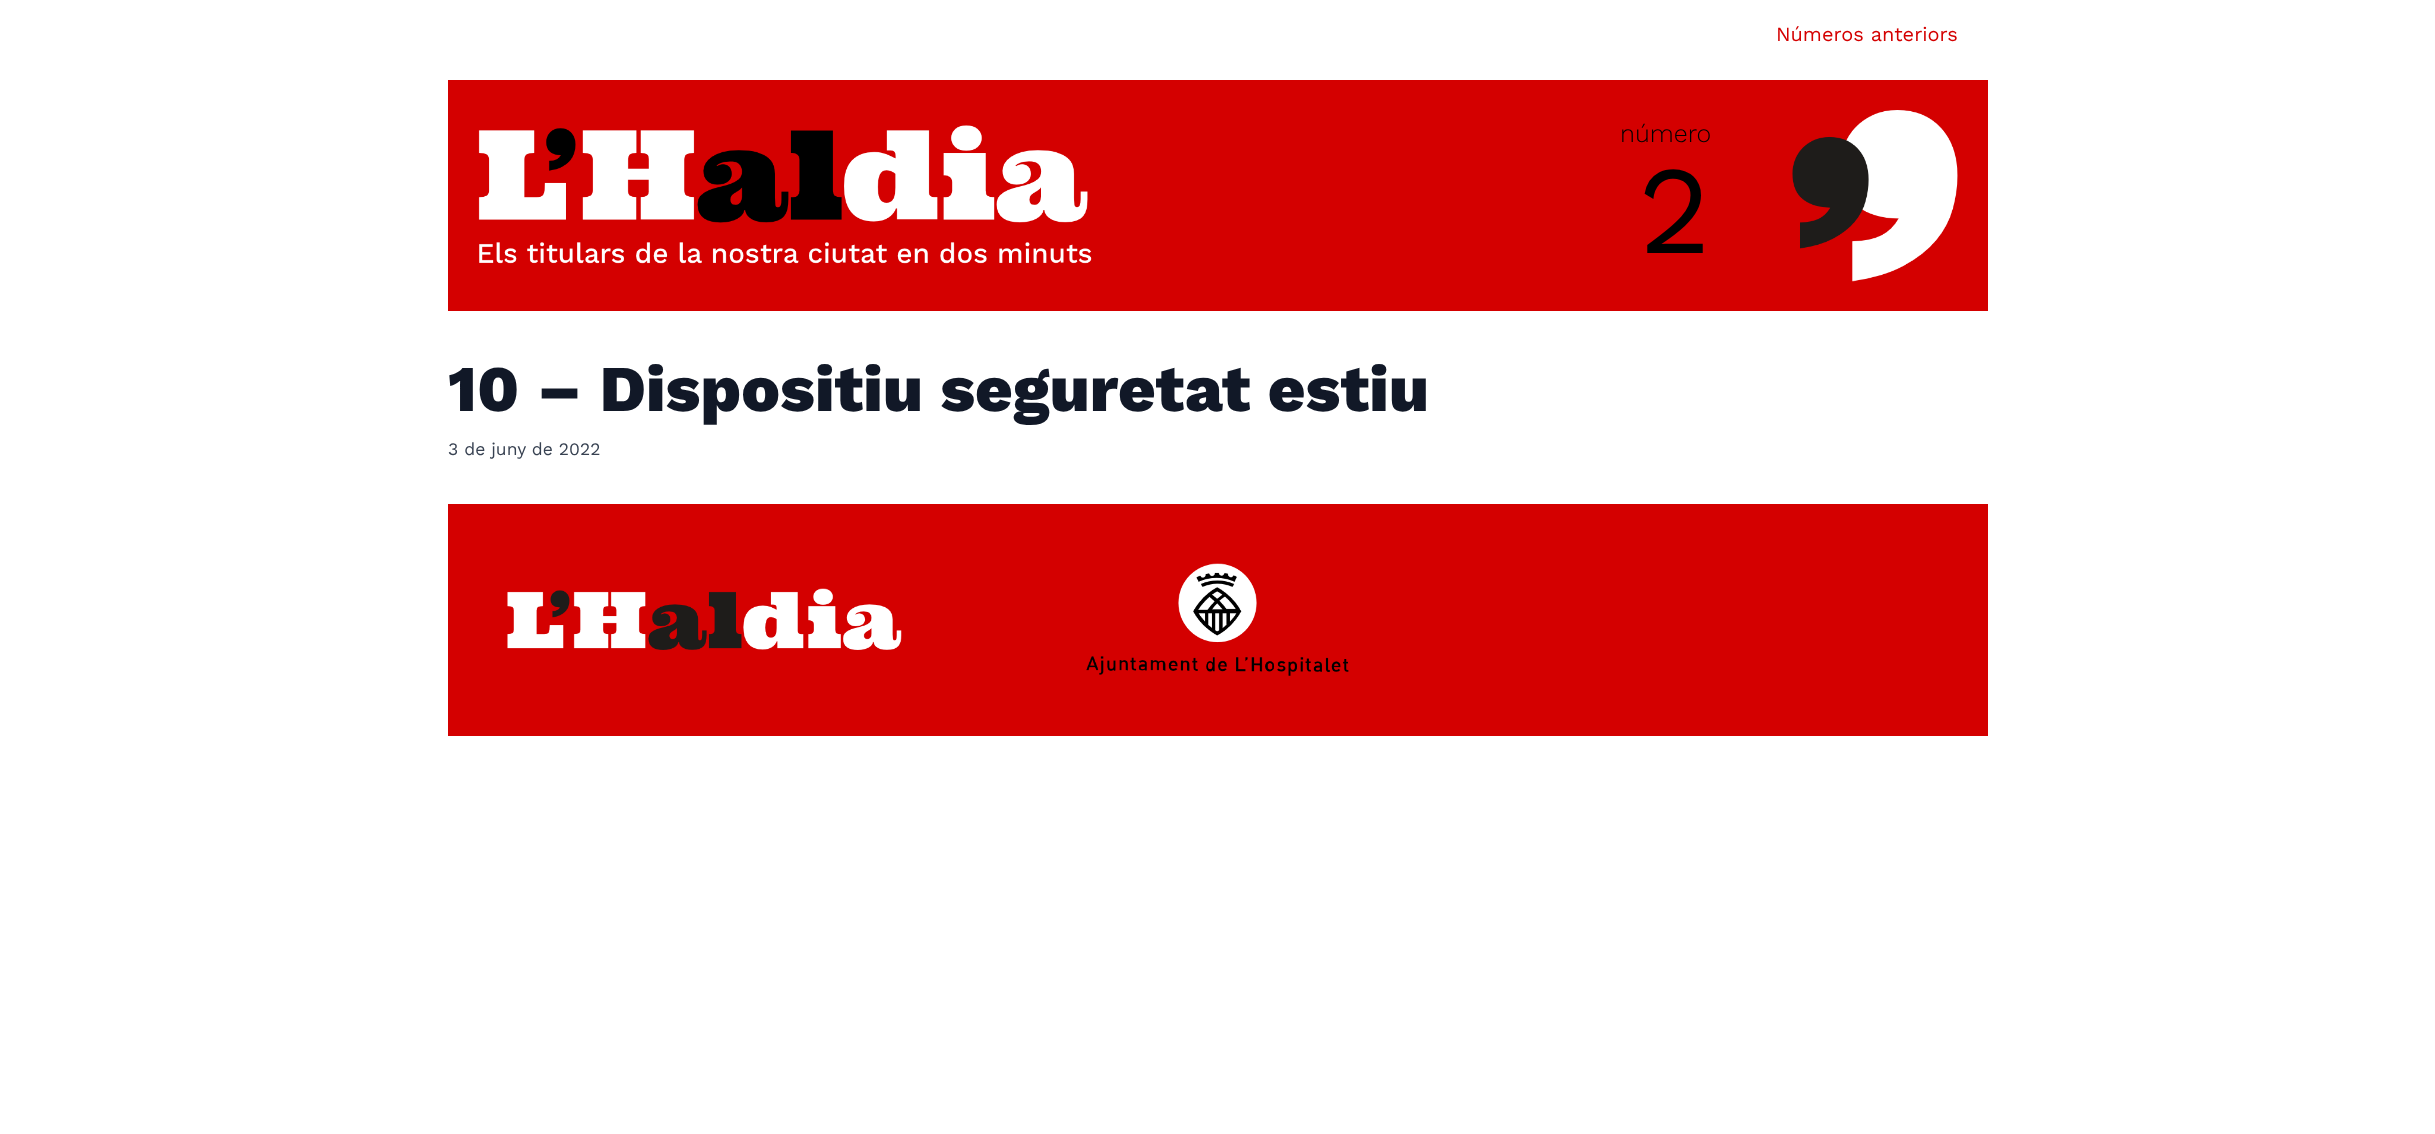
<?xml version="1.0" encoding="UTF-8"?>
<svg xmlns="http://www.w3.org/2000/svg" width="2435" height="1134">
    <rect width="100%" height="100%" fill="#FFFFFF"/>
    <text x="1776" y="41" font-family="Work Sans" font-size="20" fill="#D40000">Números anteriors</text>
    <rect x="448" y="80" width="1540" height="231" fill="#D40000"/>
    <image x="478" y="125" width="614" height="139" href="img_01.png"/>
    <text x="1620" y="142" font-family="Work Sans" font-size="25" font-weight="300" fill="#000000">número</text>
    <text x="1638" y="253" font-family="Work Sans" font-size="125" fill="#000000">2</text>
    <image x="1792" y="110" width="166" height="172" href="img_02.png"/>
    <text x="448" y="411" font-family="Work Sans" font-size="65" font-weight="800" fill="#111827">10 – Dispositiu seguretat estiu</text>
    <text x="448" y="455" font-family="Work Sans" font-size="17.5" fill="#374151">3 de juny de 2022</text>
    <rect x="448" y="504" width="1540" height="232" fill="#D40000"/>
    <image x="507" y="588" width="395" height="62" href="img_03.png"/>
    <image x="1086" y="563" width="263" height="113" href="img_04.png"/>
</svg>
